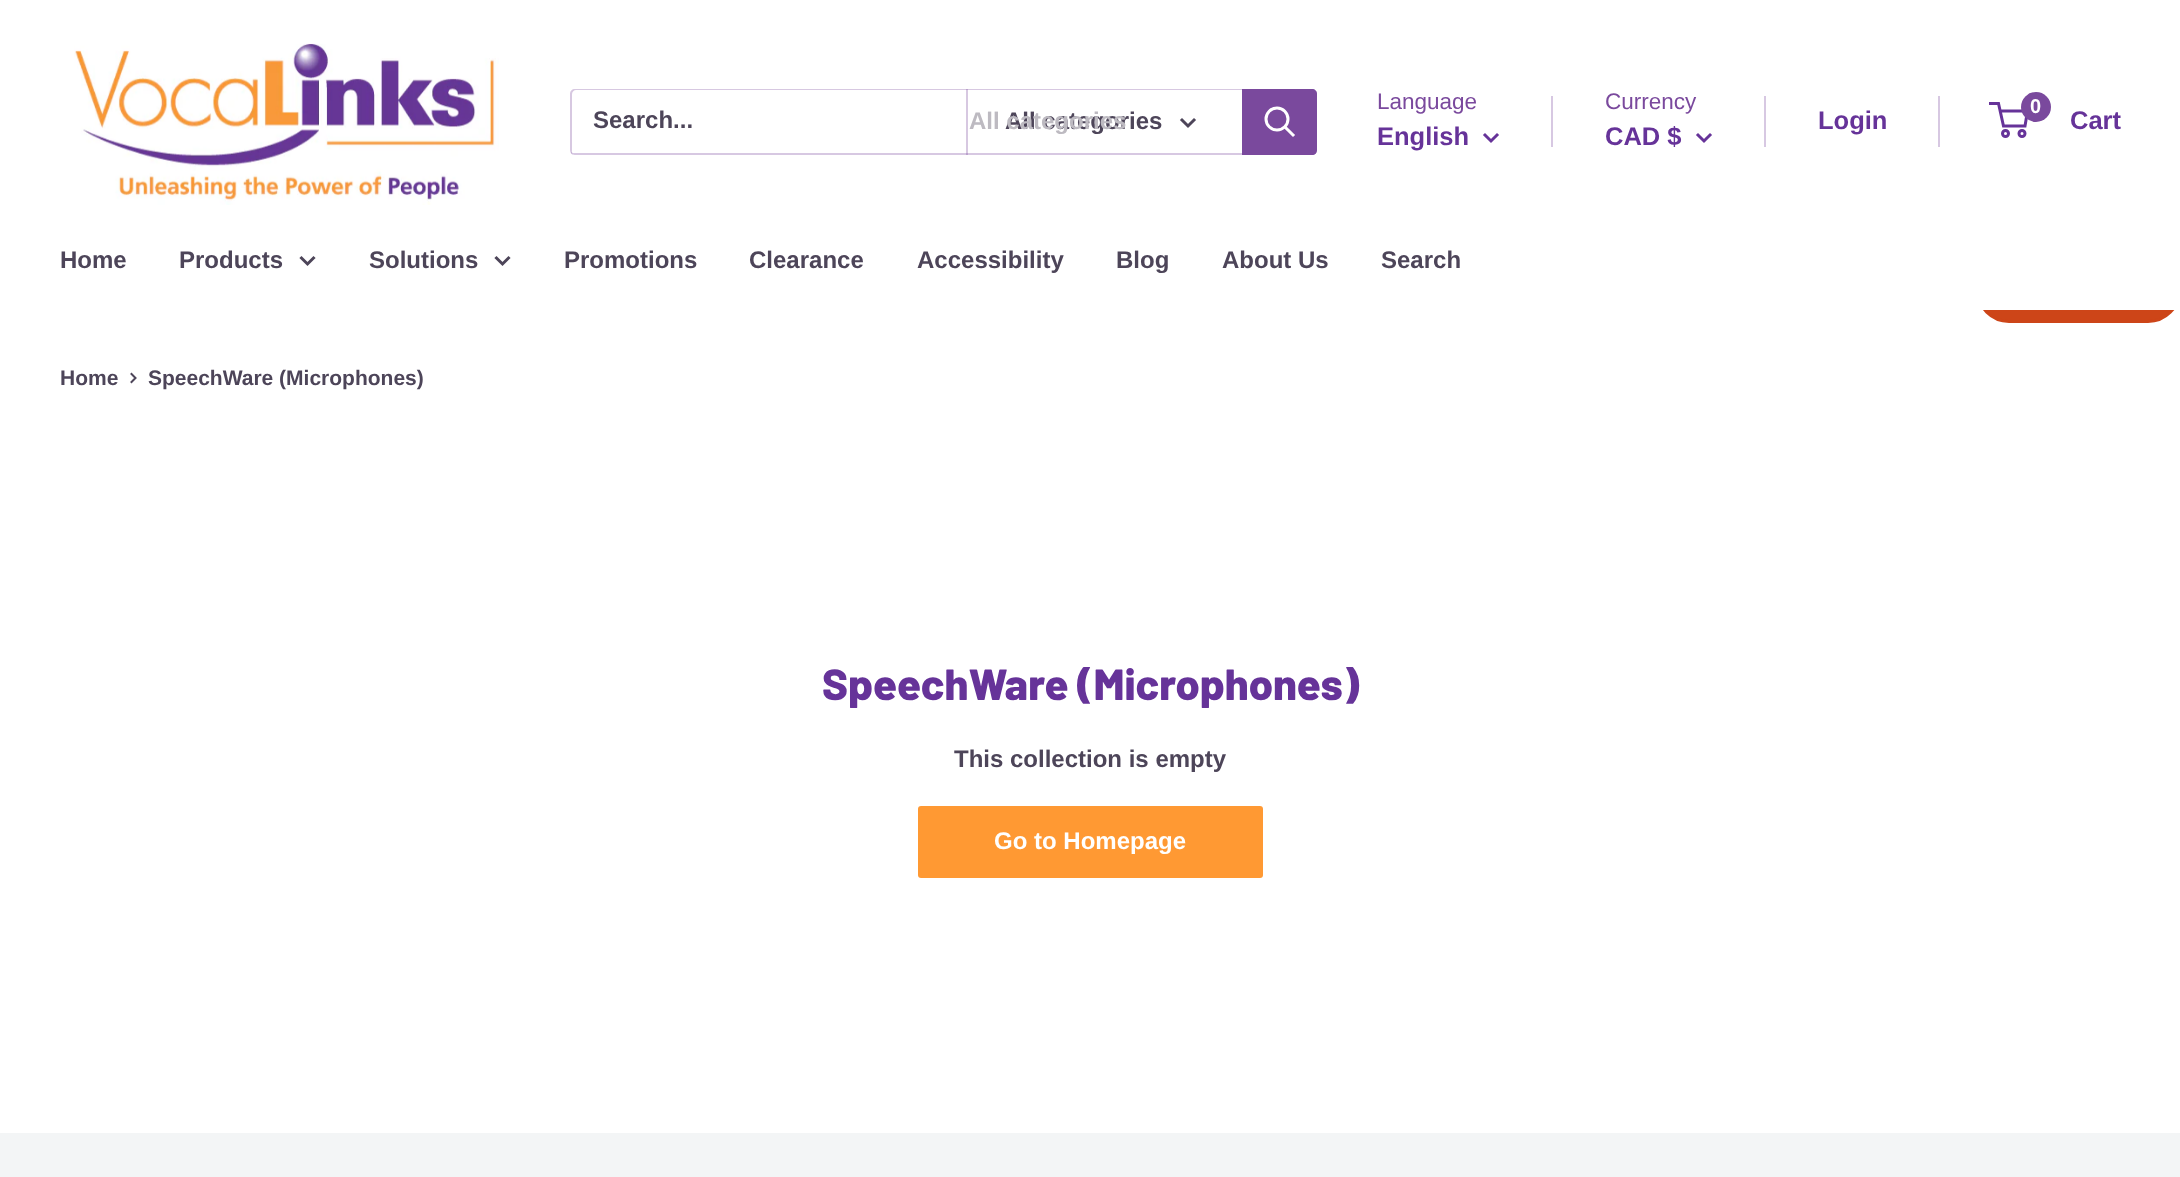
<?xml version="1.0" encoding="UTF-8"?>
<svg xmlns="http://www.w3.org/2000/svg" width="2180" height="1177">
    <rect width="100%" height="100%" fill="#FFFFFF"/>
    <image x="74" y="43" width="425" height="162" href="img_01.png"/>
    <path d="M 571 152 C 571 154 573 155 575 155 H 1312 C 1315 155 1317 153 1317 150 V 94 C 1317 93 1317 92 1316 91 V 148 C 1316 151 1313 153 1311 153 H 573 Z" fill="#D7C8E2"/>
    <path d="M 576 90 H 1315 C 1314 89 1313 89 1312 89 H 575 C 572 89 570 91 570 94 V 150 C 570 152 571 154 573 155 C 572 154 572 153 572 152 V 94 C 572 92 574 90 576 90 Z" fill="#7A499D" fill-opacity="0.3"/>
    <text x="593" y="128" font-family="Liberation Sans" font-size="24" font-weight="700" fill="#4D4559">Search...</text>
    <rect x="966" y="89" width="2" height="66" fill="#7A499D" fill-opacity="0.3"/>
    <text x="1005" y="129" font-family="Liberation Sans" font-size="24" font-weight="700" fill="#4D4559">All categories</text>
    <text x="969" y="129" font-family="Liberation Sans" font-size="24" font-weight="700" fill="#BDBAC1">All categories</text>
    <path d="M 1194 120 L 1188 126 L 1182 120" fill="none" stroke="#4D4559" stroke-width="3" stroke-linecap="square"/>
    <path d="M 1242 89 H 1312 C 1315 89 1317 91 1317 94 V 150 C 1317 153 1315 155 1312 155 H 1242 Z" fill="#7A499D"/>
    <path d="M 1293 135 L 1285.5 127.5" fill="none" stroke="#FFFFFF" stroke-width="3" stroke-linecap="square"/>
    <circle cx="1277" cy="119" r="11" fill="none" stroke="#FFFFFF" stroke-width="3"/>
    <text x="1377" y="109" font-family="Liberation Sans" font-size="22.5" fill="#7A499D">Language</text>
    <text x="1377" y="145" font-family="Liberation Sans" font-size="25.5" font-weight="700" fill="#663399">English</text>
    <path d="M 1497 135 L 1491 141 L 1485 135" fill="none" stroke="#663399" stroke-width="3" stroke-linecap="square"/>
    <rect x="1551" y="96" width="2" height="51" fill="#D7C8E2"/>
    <text x="1605" y="109" font-family="Liberation Sans" font-size="22.5" fill="#7A499D">Currency</text>
    <text x="1605" y="145" font-family="Liberation Sans" font-size="25.5" font-weight="700" fill="#663399">CAD $</text>
    <path d="M 1710 135 L 1704 141 L 1698 135" fill="none" stroke="#663399" stroke-width="3" stroke-linecap="square"/>
    <rect x="1764" y="96" width="2" height="51" fill="#D7C8E2"/>
    <text x="1818" y="129" font-family="Liberation Sans" font-size="25.5" font-weight="700" fill="#663399">Login</text>
    <rect x="1938" y="96" width="2" height="51" fill="#D7C8E2"/>
    <circle cx="2005.5" cy="133.5" r="3" fill="none" stroke="#663399" stroke-width="3"/>
    <circle cx="2022" cy="133.5" r="3" fill="none" stroke="#663399" stroke-width="3"/>
    <path d="M 2000 111 H 2027.5 L 2025 126 H 2003.5 L 1998.5 103.5 H 1989" fill="none" stroke="#663399" stroke-width="3"/>
    <circle cx="2036" cy="107" r="15" fill="#7A499D"/>
    <text x="2030" y="113" font-family="Liberation Sans" font-size="20" font-weight="700" fill="#FFFFFF">0</text>
    <text x="2070" y="129" font-family="Liberation Sans" font-size="25.5" font-weight="700" fill="#663399">Cart</text>
    <rect x="1977.5" y="258.5" width="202" height="63" rx="31.5" fill="#CD4518" stroke="#CD4518" stroke-width="3"/>
    <rect x="1976" y="257" width="204" height="51" fill="#FFFFFF"/>
    <rect x="1981" y="308" width="199" height="2" fill="#FFFFFF"/>
    <text x="60" y="268" font-family="Liberation Sans" font-size="24" font-weight="700" fill="#4D4559">Home</text>
    <text x="179" y="268" font-family="Liberation Sans" font-size="24" font-weight="700" fill="#4D4559">Products</text>
    <path d="M 313.5 258 L 307.5 264 L 301.5 258" fill="none" stroke="#4D4559" stroke-width="3" stroke-linecap="square"/>
    <text x="369" y="268" font-family="Liberation Sans" font-size="24" font-weight="700" fill="#4D4559">Solutions</text>
    <path d="M 508.5 258 L 502.5 264 L 496.5 258" fill="none" stroke="#4D4559" stroke-width="3" stroke-linecap="square"/>
    <text x="564" y="268" font-family="Liberation Sans" font-size="24" font-weight="700" fill="#4D4559">Promotions</text>
    <text x="749" y="268" font-family="Liberation Sans" font-size="24" font-weight="700" fill="#4D4559">Clearance</text>
    <text x="917" y="268" font-family="Liberation Sans" font-size="24" font-weight="700" fill="#4D4559">Accessibility</text>
    <text x="1116" y="268" font-family="Liberation Sans" font-size="24" font-weight="700" fill="#4D4559">Blog</text>
    <text x="1222" y="268" font-family="Liberation Sans" font-size="24" font-weight="700" fill="#4D4559">About Us</text>
    <text x="1381" y="268" font-family="Liberation Sans" font-size="24" font-weight="700" fill="#4D4559">Search</text>
    <text x="60" y="385" font-family="Liberation Sans" font-size="21" font-weight="700" fill="#4D4559">Home</text>
    <path d="M 131.5 374 L 135.5 378 L 131.5 382" fill="none" stroke="#4D4559" stroke-width="2" stroke-linecap="square"/>
    <text x="148" y="385" font-family="Liberation Sans" font-size="21" font-weight="700" fill="#4D4559">SpeechWare (Microphones)</text>
    <text x="822" y="700" font-family="Barlow" font-size="43.5" font-weight="800" fill="#663399">SpeechWare (Microphones)</text>
    <text x="954" y="767" font-family="Liberation Sans" font-size="24" font-weight="700" fill="#4D4559">This collection is empty</text>
    <rect x="918" y="806" width="345" height="72" rx="3" fill="#FF9933"/>
    <text x="994" y="849" font-family="Liberation Sans" font-size="24" font-weight="700" fill="#FFFFFF">Go to Homepage</text>
    <rect x="0" y="1133" width="2180" height="44" fill="#F3F5F6"/>
</svg>
